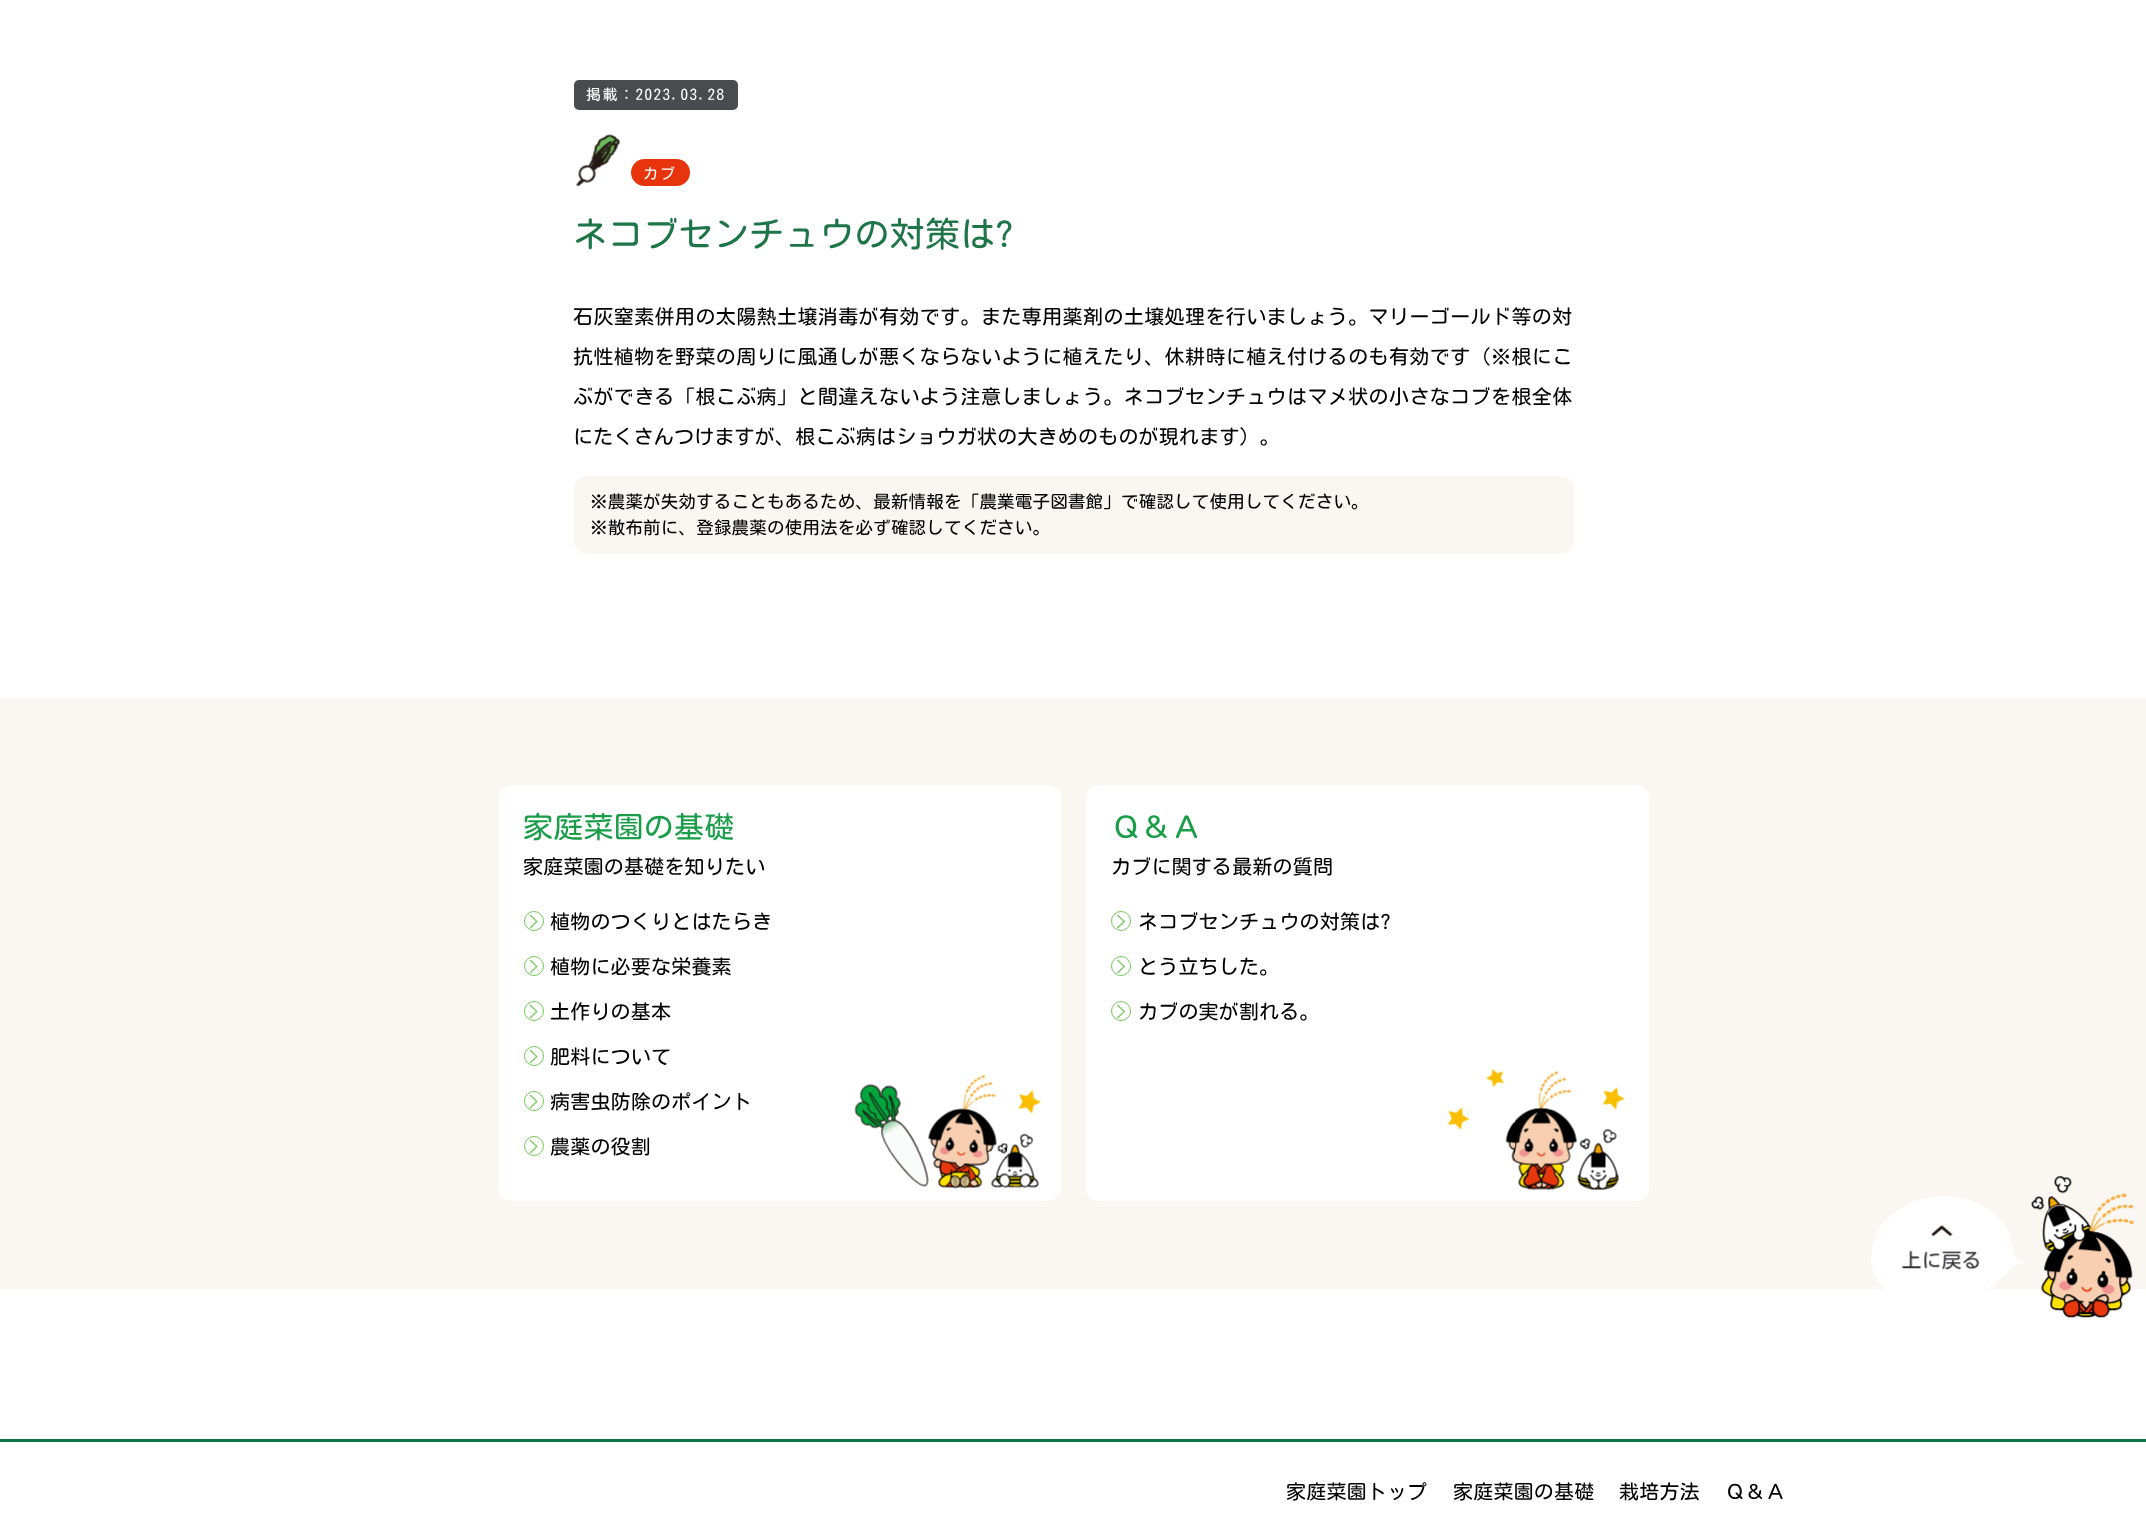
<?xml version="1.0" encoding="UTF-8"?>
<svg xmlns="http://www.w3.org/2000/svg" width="2146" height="1517">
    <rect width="100%" height="100%" fill="#FFFFFF"/>
    <rect x="574" y="80" width="164" height="30" rx="5" fill="#4A4B4F"/>
    <text x="586" y="100" font-family="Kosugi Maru" font-size="15" letter-spacing="1.5" fill="#FFFFFF">掲載：2023.03.28</text>
    <image x="576" y="134" width="45" height="53" href="img_01.png"/>
    <rect x="631" y="159" width="59" height="27" rx="13.5" fill="#E8340C"/>
    <text x="643" y="179" font-family="Kosugi Maru" font-size="15" letter-spacing="2" fill="#FFFFFF">カブ</text>
    <text x="573" y="247" font-family="Kosugi Maru" font-size="35" letter-spacing="0.2" fill="#1D7548">ネコブセンチュウの対策は?</text>
    <text x="573" y="324" font-family="Kosugi Maru" font-size="20" letter-spacing="0.4" fill="#000000">石灰窒素併用の太陽熱土壌消毒が有効です。また専用薬剤の土壌処理を行いましょう。マリーゴールド等の対</text>
    <text x="573" y="364" font-family="Kosugi Maru" font-size="20" letter-spacing="0.4" fill="#000000">抗性植物を野菜の周りに風通しが悪くならないように植えたり、休耕時に植え付けるのも有効です（※根にこ</text>
    <text x="573" y="404" font-family="Kosugi Maru" font-size="20" letter-spacing="0.4" fill="#000000">ぶができる「根こぶ病」と間違えないよう注意しましょう。ネコブセンチュウはマメ状の小さなコブを根全体</text>
    <text x="573" y="444" font-family="Kosugi Maru" font-size="20" letter-spacing="0.2" fill="#000000">にたくさんつけますが、根こぶ病はショウガ状の大きめのものが現れます）。</text>
    <rect x="574" y="476" width="1000" height="78" rx="13" fill="#FAF7F2"/>
    <text font-family="Kosugi Maru" font-size="17.5" letter-spacing="0.2" fill="#000000">
        <tspan x="590" y="508">※農薬が失効することもあるため、最新情報を「農業電子図書館」で確認して使用してください。</tspan>
        <tspan x="590" y="534">※散布前に、登録農薬の使用法を必ず確認してください。</tspan>
    </text>
    <rect x="0" y="698" width="2146" height="591" fill="#FAF7F2"/>
    <rect x="499" y="785" width="562" height="416" rx="13" fill="#FFFFFF"/>
    <image x="854" y="1074" width="188" height="115" href="img_02.png"/>
    <text x="523" y="838" font-family="Kosugi Maru" font-size="30" letter-spacing="0.2" fill="#1A9D49">家庭菜園の基礎</text>
    <text x="523" y="874" font-family="Kosugi Maru" font-size="20" letter-spacing="0.2" fill="#000000">家庭菜園の基礎を知りたい</text>
    <circle cx="534" cy="921" r="9.5" fill="none" stroke="#74C859"/>
    <text x="550" y="929" font-family="Kosugi Maru" font-size="20" letter-spacing="0.2" fill="#000000">植物のつくりとはたらき</text>
    <path d="M 530.5 914.5 L 537.5 921.5 L 537 922.5 L 529.5 915.5 Z" fill="#74C859"/>
    <path d="M 537 920.5 L 537.5 921.5 L 530.5 928.5 L 529.5 927.5 Z" fill="#74C859"/>
    <circle cx="534" cy="966" r="9.5" fill="none" stroke="#74C859"/>
    <text x="550" y="974" font-family="Kosugi Maru" font-size="20" letter-spacing="0.2" fill="#000000">植物に必要な栄養素</text>
    <path d="M 530.5 959.5 L 537.5 966.5 L 537 967.5 L 529.5 960.5 Z" fill="#74C859"/>
    <path d="M 537 965.5 L 537.5 966.5 L 530.5 973.5 L 529.5 972.5 Z" fill="#74C859"/>
    <circle cx="534" cy="1011" r="9.5" fill="none" stroke="#74C859"/>
    <text x="550" y="1019" font-family="Kosugi Maru" font-size="20" letter-spacing="0.2" fill="#000000">土作りの基本</text>
    <path d="M 530.5 1004.5 L 537.5 1011.5 L 537 1012.5 L 529.5 1005.5 Z" fill="#74C859"/>
    <path d="M 537 1010.5 L 537.5 1011.5 L 530.5 1018.5 L 529.5 1017.5 Z" fill="#74C859"/>
    <circle cx="534" cy="1056" r="9.5" fill="none" stroke="#74C859"/>
    <text x="550" y="1064" font-family="Kosugi Maru" font-size="20" letter-spacing="0.2" fill="#000000">肥料について</text>
    <path d="M 530.5 1049.5 L 537.5 1056.5 L 537 1057.5 L 529.5 1050.5 Z" fill="#74C859"/>
    <path d="M 537 1055.5 L 537.5 1056.5 L 530.5 1063.5 L 529.5 1062.5 Z" fill="#74C859"/>
    <circle cx="534" cy="1101" r="9.5" fill="none" stroke="#74C859"/>
    <text x="550" y="1109" font-family="Kosugi Maru" font-size="20" letter-spacing="0.2" fill="#000000">病害虫防除のポイント</text>
    <path d="M 530.5 1094.5 L 537.5 1101.5 L 537 1102.5 L 529.5 1095.5 Z" fill="#74C859"/>
    <path d="M 537 1100.5 L 537.5 1101.5 L 530.5 1108.5 L 529.5 1107.5 Z" fill="#74C859"/>
    <circle cx="534" cy="1146" r="9.5" fill="none" stroke="#74C859"/>
    <text x="550" y="1154" font-family="Kosugi Maru" font-size="20" letter-spacing="0.2" fill="#000000">農薬の役割</text>
    <path d="M 530.5 1139.5 L 537.5 1146.5 L 537 1147.5 L 529.5 1140.5 Z" fill="#74C859"/>
    <path d="M 537 1145.5 L 537.5 1146.5 L 530.5 1153.5 L 529.5 1152.5 Z" fill="#74C859"/>
    <rect x="1086" y="785" width="563" height="416" rx="13" fill="#FFFFFF"/>
    <image x="1447" y="1068" width="178" height="122" href="img_03.png"/>
    <text x="1111" y="838" font-family="Kosugi Maru" font-size="30" letter-spacing="0.2" fill="#1A9D49">Ｑ＆Ａ</text>
    <text x="1111" y="874" font-family="Kosugi Maru" font-size="20" letter-spacing="0.2" fill="#000000">カブに関する最新の質問</text>
    <circle cx="1121" cy="921" r="9.5" fill="none" stroke="#74C859"/>
    <text x="1138" y="929" font-family="Kosugi Maru" font-size="20" letter-spacing="0.2" fill="#000000">ネコブセンチュウの対策は?</text>
    <path d="M 1118 914.5 L 1125 921.5 L 1124.5 922.5 L 1117 915.5 Z" fill="#74C859"/>
    <path d="M 1124.5 920.5 L 1125 921.5 L 1118 928.5 L 1117 927.5 Z" fill="#74C859"/>
    <circle cx="1121" cy="966" r="9.5" fill="none" stroke="#74C859"/>
    <text x="1138" y="974" font-family="Kosugi Maru" font-size="20" letter-spacing="0.2" fill="#000000">とう立ちした。</text>
    <path d="M 1118 959.5 L 1125 966.5 L 1124.5 967.5 L 1117 960.5 Z" fill="#74C859"/>
    <path d="M 1124.5 965.5 L 1125 966.5 L 1118 973.5 L 1117 972.5 Z" fill="#74C859"/>
    <circle cx="1121" cy="1011" r="9.5" fill="none" stroke="#74C859"/>
    <text x="1138" y="1019" font-family="Kosugi Maru" font-size="20" letter-spacing="0.2" fill="#000000">カブの実が割れる。</text>
    <path d="M 1118 1004.5 L 1125 1011.5 L 1124.5 1012.5 L 1117 1005.5 Z" fill="#74C859"/>
    <path d="M 1124.5 1010.5 L 1125 1011.5 L 1118 1018.5 L 1117 1017.5 Z" fill="#74C859"/>
    <image x="1871" y="1176" width="264" height="142" href="img_04.png"/>
    <rect x="0" y="1439" width="2146" height="3" fill="#0D7647"/>
    <text x="1286" y="1499" font-family="Kosugi Maru" font-size="20" letter-spacing="0.2" fill="#000000">家庭菜園トップ</text>
    <text x="1453" y="1499" font-family="Kosugi Maru" font-size="20" letter-spacing="0.2" fill="#000000">家庭菜園の基礎</text>
    <text x="1619" y="1499" font-family="Kosugi Maru" font-size="20" letter-spacing="0.2" fill="#000000">栽培方法</text>
    <text x="1725" y="1499" font-family="Kosugi Maru" font-size="20" letter-spacing="0.2" fill="#000000">Ｑ＆Ａ</text>
</svg>
